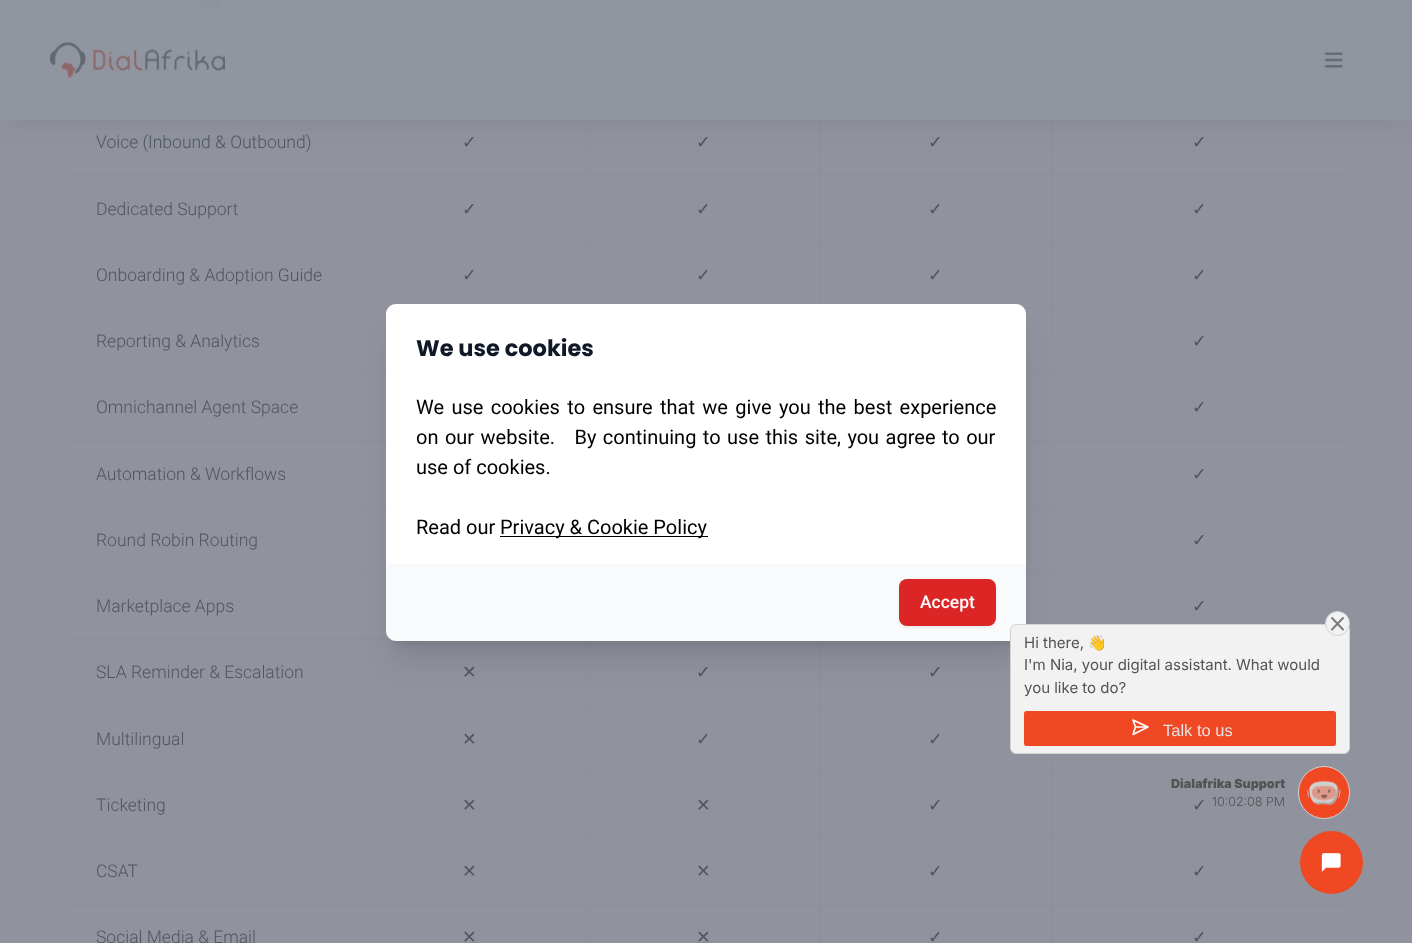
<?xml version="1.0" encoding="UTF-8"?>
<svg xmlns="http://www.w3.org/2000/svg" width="1412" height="943">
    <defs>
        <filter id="blur1" x="-50%" y="-200%" width="200%" height="500%"><feGaussianBlur stdDeviation="14"/></filter>
        <filter id="blur2" x="-50%" y="-200%" width="200%" height="500%"><feGaussianBlur stdDeviation="6"/></filter>
        <filter id="blur3" x="-50%" y="-200%" width="200%" height="500%"><feGaussianBlur stdDeviation="15.5"/></filter>
        <filter id="blur4" x="-50%" y="-200%" width="200%" height="500%"><feGaussianBlur stdDeviation="1"/></filter>
    </defs>
    <rect width="100%" height="100%" fill="#90939E"/>
    <rect x="66" y="175" width="1280" height="1" fill="#8A8F9B"/>
    <rect x="66" y="241" width="1280" height="1" fill="#8A8F9B"/>
    <rect x="66" y="308" width="1280" height="1" fill="#8A8F9B"/>
    <rect x="586" y="120" width="1" height="189" fill="#8A8F9B"/>
    <rect x="819" y="120" width="1" height="189" fill="#8A8F9B"/>
    <rect x="66" y="374" width="1280" height="1" fill="#8A8F9B"/>
    <rect x="66" y="440" width="1280" height="1" fill="#8A8F9B"/>
    <rect x="66" y="506" width="1280" height="1" fill="#8A8F9B"/>
    <rect x="66" y="573" width="1280" height="1" fill="#8A8F9B"/>
    <rect x="1051" y="120" width="1" height="504" fill="#8A8F9B"/>
    <rect x="6" y="10" width="1400" height="108" fill="#505660" fill-opacity="0.25" filter="url(#blur1)"/>
    <rect x="0" y="0" width="1412" height="120" fill="#9095A0"/>
    <image x="50" y="42" width="175" height="36" href="img_01.png"/>
    <image x="1325" y="52" width="18" height="16" href="img_02.png"/>
    <rect x="198" y="-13" width="25" height="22" rx="12.5" fill="#8E939D"/>
    <text x="96" y="148" font-family="Roboto" font-size="17.5" font-weight="300" fill="#505660">Voice (Inbound &amp; Outbound)</text>
    <text x="462" y="148" font-family="DejaVu Sans" font-size="17.5" fill="#505660">✓</text>
    <text x="696" y="148" font-family="DejaVu Sans" font-size="17.5" fill="#505660">✓</text>
    <text x="928" y="148" font-family="DejaVu Sans" font-size="17.5" fill="#505660">✓</text>
    <text x="1192" y="148" font-family="DejaVu Sans" font-size="17.5" fill="#505660">✓</text>
    <text x="96" y="215" font-family="Roboto" font-size="17.5" font-weight="300" fill="#505660">Dedicated Support</text>
    <text x="462" y="215" font-family="DejaVu Sans" font-size="17.5" fill="#505660">✓</text>
    <text x="696" y="215" font-family="DejaVu Sans" font-size="17.5" fill="#505660">✓</text>
    <text x="928" y="215" font-family="DejaVu Sans" font-size="17.5" fill="#505660">✓</text>
    <text x="1192" y="215" font-family="DejaVu Sans" font-size="17.5" fill="#505660">✓</text>
    <text x="96" y="281" font-family="Roboto" font-size="17.5" font-weight="300" fill="#505660">Onboarding &amp; Adoption Guide</text>
    <text x="462" y="281" font-family="DejaVu Sans" font-size="17.5" fill="#505660">✓</text>
    <text x="696" y="281" font-family="DejaVu Sans" font-size="17.5" fill="#505660">✓</text>
    <text x="928" y="281" font-family="DejaVu Sans" font-size="17.5" fill="#505660">✓</text>
    <text x="1192" y="281" font-family="DejaVu Sans" font-size="17.5" fill="#505660">✓</text>
    <text x="96" y="347" font-family="Roboto" font-size="17.5" font-weight="300" fill="#505660">Reporting &amp; Analytics</text>
    <text x="1192" y="347" font-family="DejaVu Sans" font-size="17.5" fill="#505660">✓</text>
    <text x="96" y="413" font-family="Roboto" font-size="17.5" font-weight="300" fill="#505660">Omnichannel Agent Space</text>
    <text x="1192" y="413" font-family="DejaVu Sans" font-size="17.5" fill="#505660">✓</text>
    <text x="96" y="480" font-family="Roboto" font-size="17.5" font-weight="300" fill="#505660">Automation &amp; Workflows</text>
    <text x="1192" y="480" font-family="DejaVu Sans" font-size="17.5" fill="#505660">✓</text>
    <text x="96" y="546" font-family="Roboto" font-size="17.5" font-weight="300" fill="#505660">Round Robin Routing</text>
    <text x="1192" y="546" font-family="DejaVu Sans" font-size="17.5" fill="#505660">✓</text>
    <rect x="66" y="639" width="326" height="1" fill="#8A8F9B"/>
    <text x="96" y="612" font-family="Roboto" font-size="17.5" font-weight="300" fill="#505660">Marketplace Apps</text>
    <text x="1192" y="612" font-family="DejaVu Sans" font-size="17.5" fill="#505660">✓</text>
    <rect x="66" y="705" width="944" height="1" fill="#8A8F9B"/>
    <text x="96" y="678" font-family="Roboto" font-size="17.5" font-weight="300" fill="#505660">SLA Reminder &amp; Escalation</text>
    <text x="462" y="678" font-family="DejaVu Sans" font-size="17.5" fill="#505660">✕</text>
    <text x="696" y="678" font-family="DejaVu Sans" font-size="17.5" fill="#505660">✓</text>
    <text x="928" y="678" font-family="DejaVu Sans" font-size="17.5" fill="#505660">✓</text>
    <rect x="66" y="771" width="1280" height="1" fill="#8A8F9B"/>
    <text x="96" y="745" font-family="Roboto" font-size="17.5" font-weight="300" fill="#505660">Multilingual</text>
    <text x="462" y="745" font-family="DejaVu Sans" font-size="17.5" fill="#505660">✕</text>
    <text x="696" y="745" font-family="DejaVu Sans" font-size="17.5" fill="#505660">✓</text>
    <text x="928" y="745" font-family="DejaVu Sans" font-size="17.5" fill="#505660">✓</text>
    <rect x="66" y="838" width="1246" height="1" fill="#8A8F9B"/>
    <text x="96" y="811" font-family="Roboto" font-size="17.5" font-weight="300" fill="#505660">Ticketing</text>
    <text x="462" y="811" font-family="DejaVu Sans" font-size="17.5" fill="#505660">✕</text>
    <text x="696" y="811" font-family="DejaVu Sans" font-size="17.5" fill="#505660">✕</text>
    <text x="928" y="811" font-family="DejaVu Sans" font-size="17.5" fill="#505660">✓</text>
    <text x="1192" y="811" font-family="DejaVu Sans" font-size="17.5" fill="#505660">✓</text>
    <rect x="66" y="904" width="1280" height="1" fill="#8A8F9B"/>
    <text x="96" y="877" font-family="Roboto" font-size="17.5" font-weight="300" fill="#505660">CSAT</text>
    <text x="462" y="877" font-family="DejaVu Sans" font-size="17.5" fill="#505660">✕</text>
    <text x="696" y="877" font-family="DejaVu Sans" font-size="17.5" fill="#505660">✕</text>
    <text x="928" y="877" font-family="DejaVu Sans" font-size="17.5" fill="#505660">✓</text>
    <text x="1192" y="877" font-family="DejaVu Sans" font-size="17.5" fill="#505660">✓</text>
    <text x="96" y="943" font-family="Roboto" font-size="17.5" font-weight="300" fill="#505660">Social Media &amp; Email</text>
    <rect x="586" y="639" width="1" height="304" fill="#8A8F9B"/>
    <text x="462" y="943" font-family="DejaVu Sans" font-size="17.5" fill="#505660">✕</text>
    <rect x="819" y="639" width="1" height="304" fill="#8A8F9B"/>
    <text x="696" y="943" font-family="DejaVu Sans" font-size="17.5" fill="#505660">✕</text>
    <rect x="1051" y="754" width="1" height="189" fill="#8A8F9B"/>
    <text x="928" y="943" font-family="DejaVu Sans" font-size="17.5" fill="#505660">✓</text>
    <text x="1192" y="943" font-family="DejaVu Sans" font-size="17.5" fill="#505660">✓</text>
    <rect x="394" y="321" width="625" height="323" rx="2.5" fill="#000000" fill-opacity="0.1" filter="url(#blur2)"/>
    <rect x="393" y="335" width="627" height="325" rx="4" fill="#000000" fill-opacity="0.1" filter="url(#blur3)"/>
    <path d="M 396 304 H 1016 C 1021.5 304 1026 308.5 1026 314 V 564 H 386 V 314 C 386 308.5 390.5 304 396 304 Z" fill="#FFFFFF"/>
    <text x="416" y="356" font-family="Poppins" font-size="22.5" font-weight="700" fill="#111827">We use cookies</text>
    <text font-family="Roboto" font-size="20" fill="#000000" xml:space="preserve"><tspan x="416" y="414" word-spacing="2.4">We use cookies to ensure that we give you the best experience</tspan><tspan x="416" y="444" word-spacing="1.5">on our website.   By continuing to use this site, you agree to our</tspan><tspan x="416" y="474">use of cookies.</tspan></text>
    <text x="416" y="534" font-family="Roboto" font-size="20" fill="#000000">Read our</text>
    <rect x="500" y="536" width="208" height="1" fill="#000000"/>
    <text x="500" y="534" font-family="Roboto" font-size="20" fill="#000000">Privacy &amp; Cookie Policy</text>
    <path d="M 386 564 H 1026 V 631 C 1026 636.5 1021.5 641 1016 641 H 396 C 390.5 641 386 636.5 386 631 Z" fill="#F9FAFB"/>
    <rect x="899" y="580" width="97" height="48" rx="8" fill="#000000" fill-opacity="0.05" filter="url(#blur4)"/>
    <rect x="899" y="579" width="97" height="47" rx="8" fill="#DC2626"/>
    <text x="920" y="608" font-family="Roboto" font-size="17.5" font-weight="500" fill="#FFFFFF">Accept</text>
    <rect x="1010.5" y="624.5" width="339" height="129" rx="5.5" fill="#F2F2F2" stroke="#D2D2D2"/>
    <circle cx="1337.5" cy="623.5" r="12" fill="#F2F2F2" stroke="#D2D2D2"/>
    <path d="M 1343 618 L 1332 629.5 M 1332 618 L 1343 629.5" fill="none" stroke="#797979" stroke-width="1.9" stroke-linecap="round" stroke-linejoin="round"/>
    <text x="1024" y="648" font-family="Inter" font-size="15" fill="#535353">Hi there,</text>
    <text x="1088" y="648" font-family="Noto Color Emoji" font-size="15" fill="#535353">👋</text>
    <text font-family="Inter" font-size="15" fill="#535353">
        <tspan x="1024" y="670">I'm Nia, your digital assistant. What would</tspan>
        <tspan x="1024" y="693">you like to do?</tspan>
    </text>
    <rect x="1024" y="711" width="312" height="35" rx="2.5" fill="#EF4823"/>
    <path d="M 1148 727 H 1135.5 M 1148 727 L 1133 734.5 L 1135.5 727 L 1133 720 Z" fill="none" stroke="#FFFFFF" stroke-width="1.6" stroke-linecap="round" stroke-linejoin="round"/>
    <text x="1163" y="736" font-family="Liberation Sans" font-size="16.5" fill="#E3E3E3">Talk to us</text>
    <text x="1171" y="788" font-family="Inter" font-size="12.5" font-weight="900" fill="#535353">Dialafrika Support</text>
    <text x="1212" y="806" font-family="Inter" font-size="12.5" font-weight="300" fill="#535353">10:02:08 PM</text>
    <rect x="1298.5" y="766.5" width="51" height="52" rx="25.5" fill="#EF4823" stroke="#D2D2D2"/>
    <image x="1307" y="780" width="34" height="25" href="img_03.png"/>
    <circle cx="1331.5" cy="862.5" r="31.5" fill="#EF4823"/>
    <image x="1321" y="853" width="20" height="19" href="img_04.png"/>
</svg>
